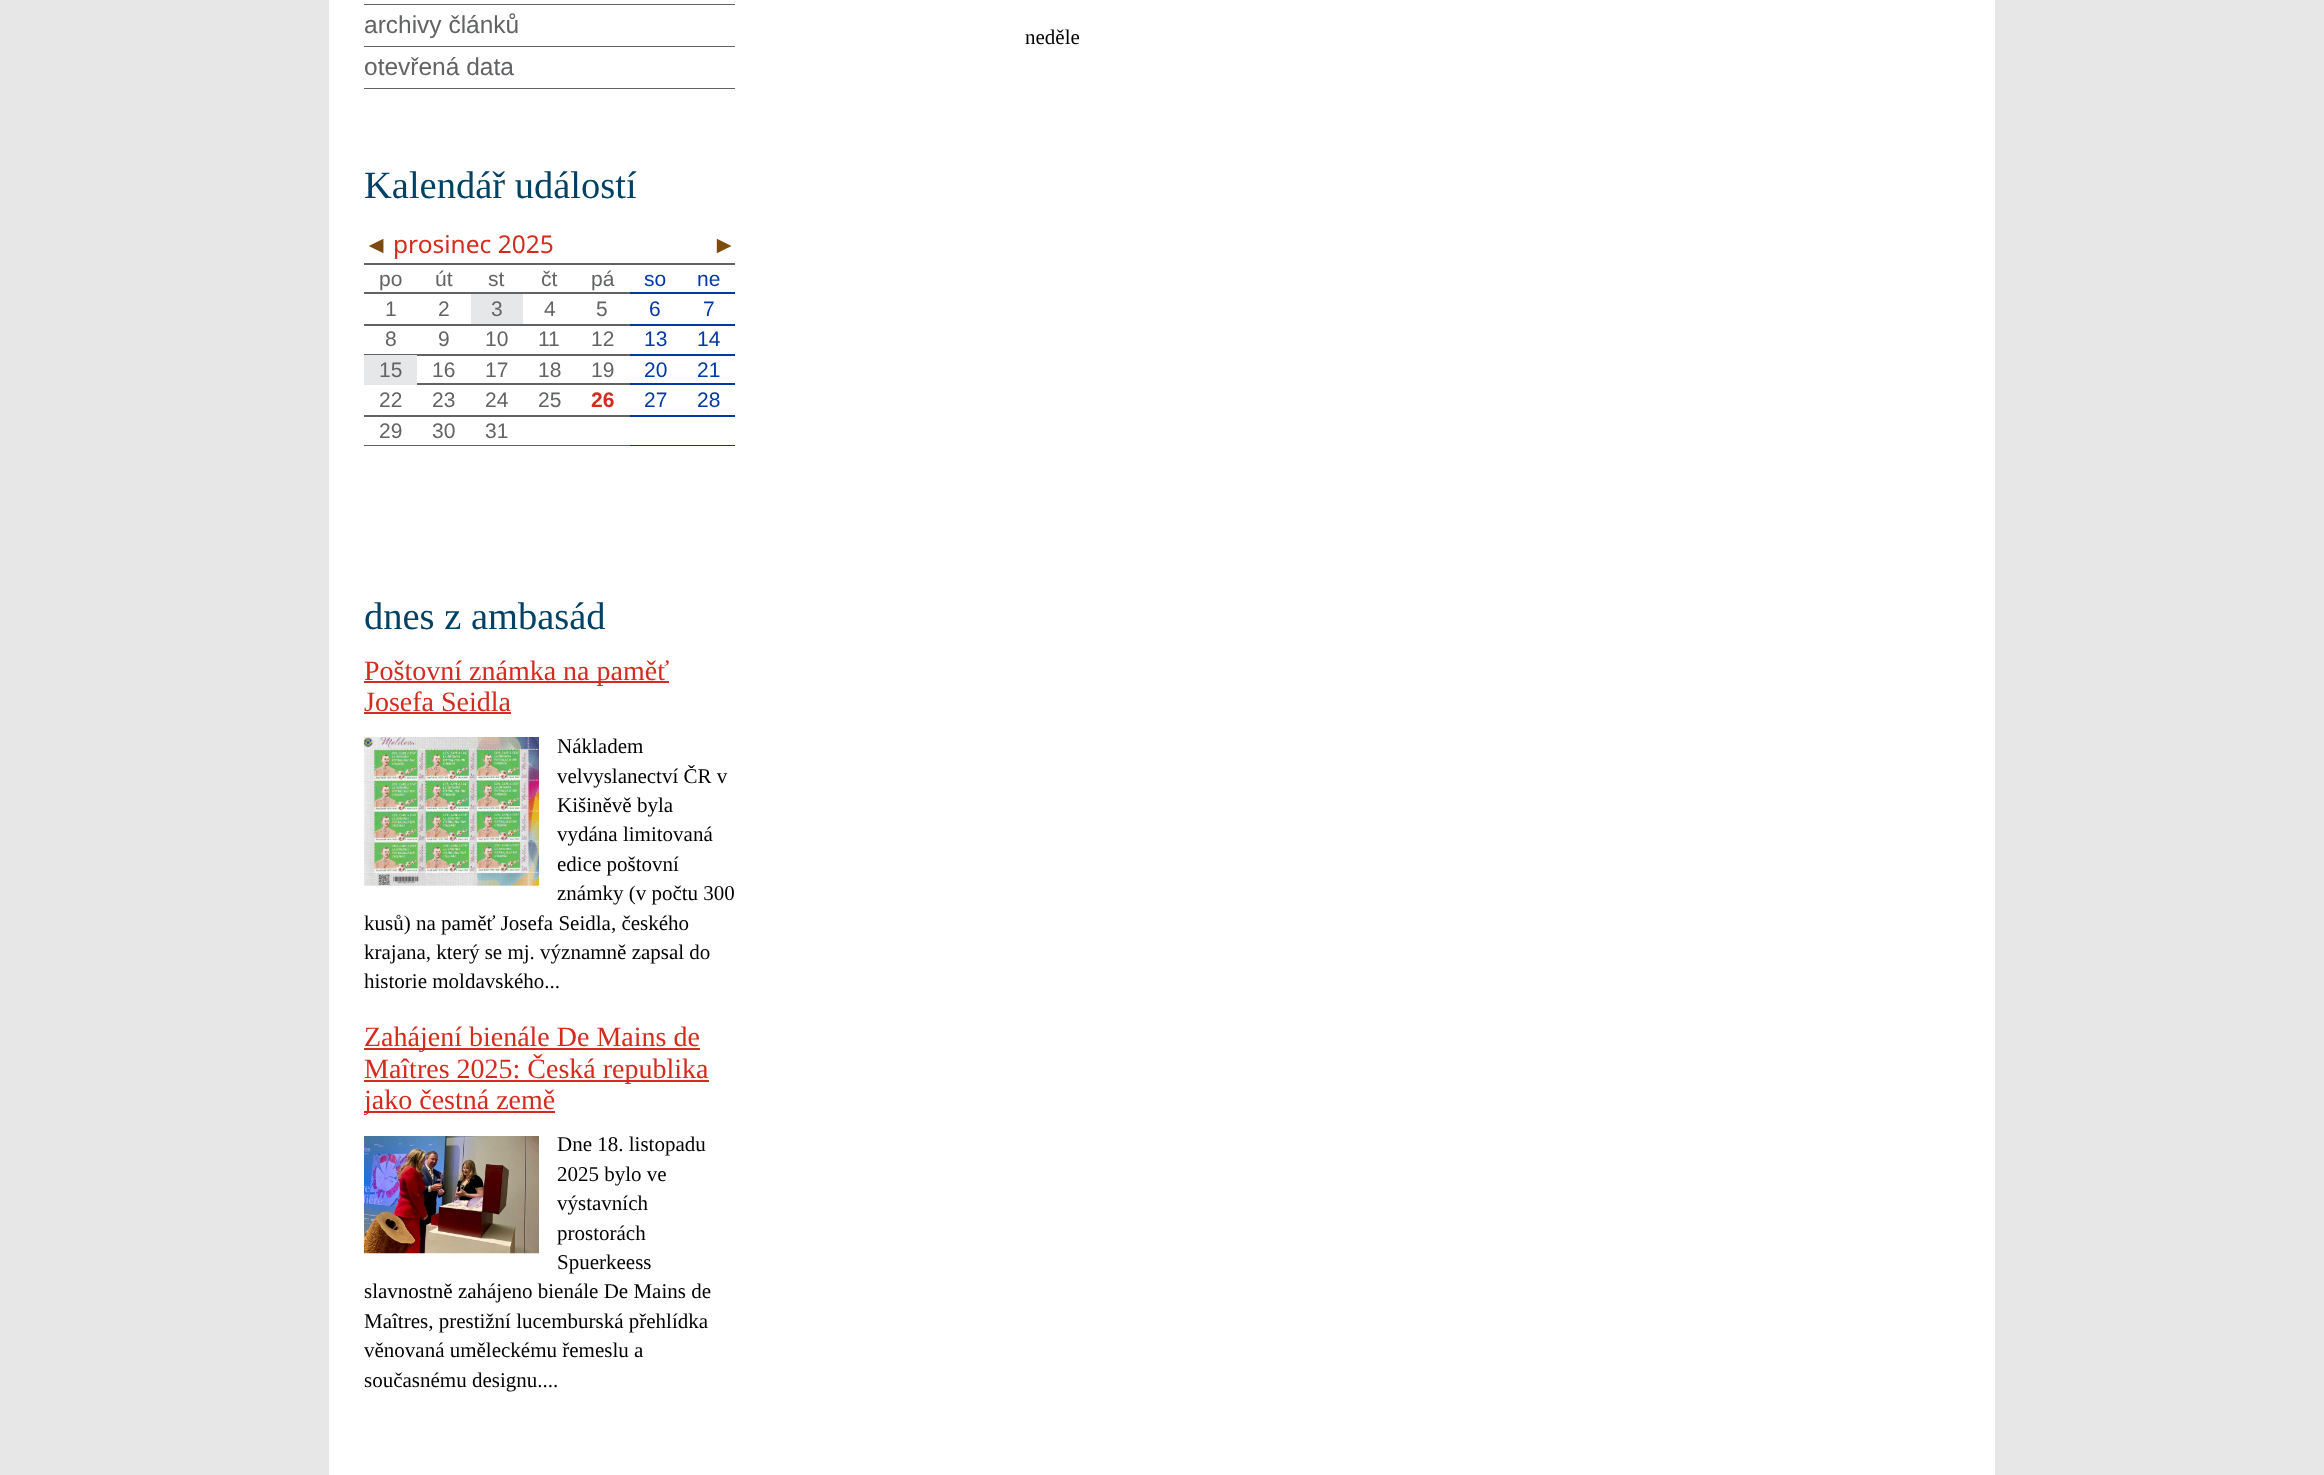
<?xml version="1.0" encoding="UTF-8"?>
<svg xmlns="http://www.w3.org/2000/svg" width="2324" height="1475">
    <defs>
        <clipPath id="clip1"><rect x="364" y="593" width="371" height="828"/></clipPath>
    </defs>
    <rect width="100%" height="100%" fill="#E7E7E7"/>
    <rect x="329" y="0" width="1666" height="1475" fill="#FFFFFF"/>
    <rect x="364" y="4" width="371" height="1" fill="#616365"/>
    <rect x="364" y="46" width="371" height="1" fill="#616365"/>
    <text x="364" y="33" font-family="Liberation Sans" font-size="24.5" fill="#616365">archivy článků</text>
    <rect x="364" y="88" width="371" height="1" fill="#616365"/>
    <text x="364" y="75" font-family="Liberation Sans" font-size="24.5" fill="#616365">otevřená data</text>
    <text x="364" y="198" font-family="Liberation Serif" font-size="38.5" fill="#004165">Kalendář událostí</text>
    <rect x="364" y="263" width="371" height="2" fill="#616365"/>
    <text x="364" y="253" font-family="Liberation Serif" font-size="24.5" fill="#7D4B0E">◄</text>
    <text x="393" y="253" font-family="Noto Sans" font-size="24.5" fill="#D52B1E">prosinec 2025</text>
    <text x="712" y="253" font-family="Liberation Serif" font-size="24.5" fill="#7D4B0E">►</text>
    <text x="379" y="286" font-family="Liberation Sans" font-size="21" fill="#616365">po</text>
    <text x="435" y="286" font-family="Liberation Sans" font-size="21" fill="#616365">út</text>
    <text x="488" y="286" font-family="Liberation Sans" font-size="21" fill="#616365">st</text>
    <text x="541" y="286" font-family="Liberation Sans" font-size="21" fill="#616365">čt</text>
    <rect x="628" y="292" width="107" height="2" fill="#0039A6"/>
    <rect x="364" y="292" width="266" height="2" fill="#616365"/>
    <text x="591" y="286" font-family="Liberation Sans" font-size="21" fill="#616365">pá</text>
    <text x="644" y="286" font-family="Liberation Sans" font-size="21" fill="#0039A6">so</text>
    <text x="697" y="286" font-family="Liberation Sans" font-size="21" fill="#0039A6">ne</text>
    <text x="385" y="316" font-family="Liberation Sans" font-size="21" fill="#616365">1</text>
    <text x="438" y="316" font-family="Liberation Sans" font-size="21" fill="#616365">2</text>
    <rect x="471" y="294" width="52" height="30" fill="#E5E7E9"/>
    <text x="491" y="316" font-family="Liberation Sans" font-size="21" fill="#616365">3</text>
    <text x="544" y="316" font-family="Liberation Sans" font-size="21" fill="#616365">4</text>
    <rect x="628" y="324" width="107" height="2" fill="#0039A6"/>
    <rect x="364" y="324" width="266" height="2" fill="#616365"/>
    <text x="596" y="316" font-family="Liberation Sans" font-size="21" fill="#616365">5</text>
    <text x="649" y="316" font-family="Liberation Sans" font-size="21" fill="#0039A6">6</text>
    <text x="703" y="316" font-family="Liberation Sans" font-size="21" fill="#0039A6">7</text>
    <text x="385" y="346" font-family="Liberation Sans" font-size="21" fill="#616365">8</text>
    <text x="438" y="346" font-family="Liberation Sans" font-size="21" fill="#616365">9</text>
    <text x="485" y="346" font-family="Liberation Sans" font-size="21" fill="#616365">10</text>
    <text x="538" y="346" font-family="Liberation Sans" font-size="21" fill="#616365">11</text>
    <rect x="628" y="354" width="107" height="2" fill="#0039A6"/>
    <rect x="364" y="354" width="266" height="2" fill="#616365"/>
    <text x="591" y="346" font-family="Liberation Sans" font-size="21" fill="#616365">12</text>
    <text x="644" y="346" font-family="Liberation Sans" font-size="21" fill="#0039A6">13</text>
    <text x="697" y="346" font-family="Liberation Sans" font-size="21" fill="#0039A6">14</text>
    <rect x="364" y="355" width="53" height="30" fill="#E5E7E9"/>
    <text x="379" y="377" font-family="Liberation Sans" font-size="21" fill="#616365">15</text>
    <text x="432" y="377" font-family="Liberation Sans" font-size="21" fill="#616365">16</text>
    <text x="485" y="377" font-family="Liberation Sans" font-size="21" fill="#616365">17</text>
    <text x="538" y="377" font-family="Liberation Sans" font-size="21" fill="#616365">18</text>
    <rect x="628" y="383" width="107" height="2" fill="#0039A6"/>
    <rect x="417" y="383" width="213" height="2" fill="#616365"/>
    <text x="591" y="377" font-family="Liberation Sans" font-size="21" fill="#616365">19</text>
    <text x="644" y="377" font-family="Liberation Sans" font-size="21" fill="#0039A6">20</text>
    <text x="697" y="377" font-family="Liberation Sans" font-size="21" fill="#0039A6">21</text>
    <text x="379" y="407" font-family="Liberation Sans" font-size="21" fill="#616365">22</text>
    <text x="432" y="407" font-family="Liberation Sans" font-size="21" fill="#616365">23</text>
    <text x="485" y="407" font-family="Liberation Sans" font-size="21" fill="#616365">24</text>
    <text x="538" y="407" font-family="Liberation Sans" font-size="21" fill="#616365">25</text>
    <rect x="628" y="415" width="107" height="2" fill="#0039A6"/>
    <rect x="364" y="415" width="266" height="2" fill="#616365"/>
    <text x="591" y="407" font-family="Liberation Sans" font-size="21" font-weight="700" fill="#D52B1E">26</text>
    <text x="644" y="407" font-family="Liberation Sans" font-size="21" fill="#0039A6">27</text>
    <text x="697" y="407" font-family="Liberation Sans" font-size="21" fill="#0039A6">28</text>
    <text x="379" y="438" font-family="Liberation Sans" font-size="21" fill="#616365">29</text>
    <text x="432" y="438" font-family="Liberation Sans" font-size="21" fill="#616365">30</text>
    <text x="485" y="438" font-family="Liberation Sans" font-size="21" fill="#616365">31</text>
    <rect x="628" y="445" width="107" height="1" fill="#0039A6"/>
    <rect x="364" y="445" width="266" height="1" fill="#616365"/>
    <text x="364" y="629" font-family="Liberation Serif" font-size="38.5" fill="#004165">dnes z ambasád</text>
    <rect x="364" y="681" width="305" height="2" fill="#D52B1E"/>
    <text font-family="Liberation Serif" font-size="28" fill="#D52B1E">
        <tspan x="364" y="680">Poštovní známka na paměť</tspan>
        <tspan x="364" y="711">Josefa Seidla</tspan>
    </text>
    <rect x="364" y="712" width="147" height="2" fill="#D52B1E"/>
    <image x="364" y="737" width="175" height="149" href="img_01.png"/>
    <text font-family="Liberation Serif" font-size="21" fill="#000000">
        <tspan x="557" y="753">Nákladem</tspan>
        <tspan x="557" y="783">velvyslanectví ČR v</tspan>
        <tspan x="557" y="812">Kišiněvě byla</tspan>
        <tspan x="557" y="841">vydána limitovaná</tspan>
        <tspan x="557" y="871">edice poštovní</tspan>
        <tspan x="557" y="900">známky (v počtu 300</tspan>
    </text>
    <text font-family="Liberation Serif" font-size="21" fill="#000000">
        <tspan x="364" y="930">kusů) na paměť Josefa Seidla, českého</tspan>
        <tspan x="364" y="959">krajana, který se mj. významně zapsal do</tspan>
        <tspan x="364" y="988">historie moldavského...</tspan>
    </text>
    <rect x="364" y="1048" width="336" height="2" fill="#D52B1E"/>
    <text x="364" y="1046" font-family="Liberation Serif" font-size="28" fill="#D52B1E">Zahájení bienále De Mains de</text>
    <rect x="364" y="1080" width="345" height="2" fill="#D52B1E"/>
    <text x="364" y="1078" font-family="Liberation Serif" font-size="28" fill="#D52B1E">Maîtres 2025: Česká republika</text>
    <rect x="364" y="1111" width="191" height="2" fill="#D52B1E"/>
    <g clip-path="url(#clip1)">
        <text x="364" y="1109" font-family="Liberation Serif" font-size="28" fill="#D52B1E">jako čestná země</text>
    </g>
    <image x="364" y="1136" width="175" height="118" href="img_02.png"/>
    <text font-family="Liberation Serif" font-size="21" fill="#000000">
        <tspan x="557" y="1151">Dne 18. listopadu</tspan>
        <tspan x="557" y="1181">2025 bylo ve</tspan>
        <tspan x="557" y="1210">výstavních</tspan>
        <tspan x="557" y="1240">prostorách</tspan>
        <tspan x="557" y="1269">Spuerkeess</tspan>
    </text>
    <text font-family="Liberation Serif" font-size="21" fill="#000000">
        <tspan x="364" y="1298">slavnostně zahájeno bienále De Mains de</tspan>
        <tspan x="364" y="1328">Maîtres, prestižní lucemburská přehlídka</tspan>
        <tspan x="364" y="1357">věnovaná uměleckému řemeslu a</tspan>
        <tspan x="364" y="1387">současnému designu....</tspan>
    </text>
    <text x="1025" y="44" font-family="Liberation Serif" font-size="21" fill="#000000">neděle</text>
</svg>
